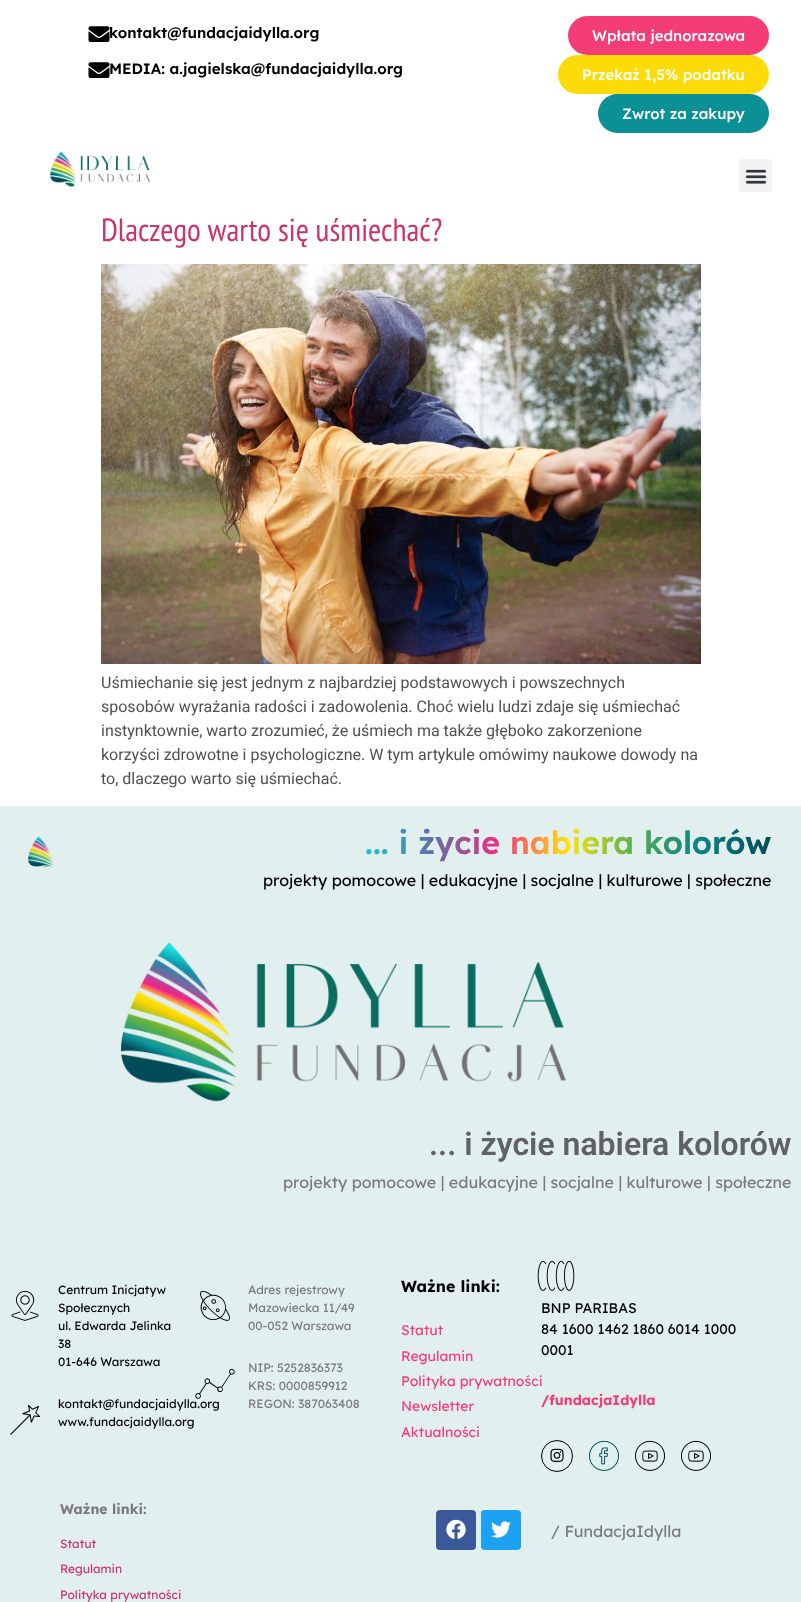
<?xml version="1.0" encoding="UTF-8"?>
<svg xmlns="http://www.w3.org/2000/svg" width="801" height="1602">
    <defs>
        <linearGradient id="g1" gradientUnits="userSpaceOnUse" x1="771" y1="842" x2="365" y2="842"><stop offset="0" stop-color="#014C59"/><stop offset="0.17" stop-color="#0B8088"/><stop offset="0.33" stop-color="#4FAC54"/><stop offset="0.5" stop-color="#FDE410"/><stop offset="0.67" stop-color="#F22B82"/><stop offset="0.83" stop-color="#5F70A4"/><stop offset="1" stop-color="#15C5CE"/></linearGradient>
    </defs>
    <rect width="100%" height="100%" fill="#FFFFFF"/>
    <image x="88" y="26" width="22" height="16" href="img_01.png"/>
    <text x="109" y="38" font-family="Lexend" font-size="15" font-weight="600" fill="#000000">kontakt@fundacjaidylla.org</text>
    <image x="88" y="62" width="22" height="16" href="img_01.png"/>
    <text x="109" y="74" font-family="Lexend" font-size="15" font-weight="600" fill="#000000">MEDIA: a.jagielska@fundacjaidylla.org</text>
    <rect x="568" y="16" width="201" height="39" rx="19.5" fill="#F43D77"/>
    <text x="592" y="41" font-family="Lexend" font-size="15" font-weight="500" fill="#FFFFFF">Wpłata jednorazowa</text>
    <rect x="558" y="55" width="211" height="39" rx="19.5" fill="#FDDB08"/>
    <text x="582" y="80" font-family="Lexend" font-size="15" font-weight="500" fill="#FFFFFF">Przekaż 1,5% podatku</text>
    <rect x="598" y="94" width="171" height="39" rx="19.5" fill="#0B9096"/>
    <text x="622" y="119" font-family="Lexend" font-size="15" font-weight="500" fill="#FFFFFF">Zwrot za zakupy</text>
    <image x="49" y="151" width="101" height="36" href="img_02.png"/>
    <rect x="739" y="159" width="33" height="33" rx="3" fill="#F2F2F2"/>
    <image x="745" y="169" width="22" height="15" href="img_03.png"/>
    <text x="101" y="241" font-family="PT Sans Narrow" font-size="32" fill="#CC3366">Dlaczego warto się uśmiechać?</text>
    <image x="101" y="264" width="600" height="400" href="img_04.png"/>
    <text font-family="Roboto" font-size="16" fill="#505050">
        <tspan x="101" y="688">Uśmiechanie się jest jednym z najbardziej podstawowych i powszechnych</tspan>
        <tspan x="101" y="712">sposobów wyrażania radości i zadowolenia. Choć wielu ludzi zdaje się uśmiechać</tspan>
        <tspan x="101" y="736">instynktownie, warto zrozumieć, że uśmiech ma także głęboko zakorzenione</tspan>
        <tspan x="101" y="760">korzyści zdrowotne i psychologiczne. W tym artykule omówimy naukowe dowody na</tspan>
        <tspan x="101" y="784">to, dlaczego warto się uśmiechać.</tspan>
    </text>
    <rect x="0" y="806" width="801" height="796" fill="#E2EFEF"/>
    <image x="28" y="836" width="25" height="31" href="img_05.png"/>
    <text x="365" y="854" font-family="Lexend" font-size="32" font-weight="600" fill="url(#g1)">... i życie nabiera kolorów</text>
    <text x="263" y="886" font-family="Lexend" font-size="16" fill="#000000">projekty pomocowe | edukacyjne | socjalne | kulturowe | społeczne</text>
    <image x="120" y="942" width="447" height="160" href="img_06.png"/>
    <text x="429" y="1155" font-family="Roboto" font-size="32" font-weight="600" fill="#606162">... i życie nabiera kolorów</text>
    <text x="283" y="1188" font-family="Lexend" font-size="16" fill="#7A7A7A">projekty pomocowe | edukacyjne | socjalne | kulturowe | społeczne</text>
    <image x="11" y="1290" width="28" height="31" href="img_07.png"/>
    <text font-family="Lexend" font-size="12" fill="#000000">
        <tspan x="58" y="1294">Centrum Inicjatyw</tspan>
        <tspan x="58" y="1312">Społecznych</tspan>
        <tspan x="58" y="1330">ul. Edwarda Jelinka</tspan>
        <tspan x="58" y="1348">38</tspan>
        <tspan x="58" y="1366">01-646 Warszawa</tspan>
    </text>
    <image x="10" y="1404" width="31" height="31" href="img_08.png"/>
    <text font-family="Lexend" font-size="12" fill="#000000">
        <tspan x="58" y="1408">kontakt@fundacjaidylla.org</tspan>
        <tspan x="58" y="1426">www.fundacjaidylla.org</tspan>
    </text>
    <image x="200" y="1290" width="30" height="31" href="img_09.png"/>
    <text font-family="Lexend" font-size="12" fill="#7A7A7A">
        <tspan x="248" y="1294">Adres rejestrowy</tspan>
        <tspan x="248" y="1312">Mazowiecka 11/49</tspan>
        <tspan x="248" y="1330">00-052 Warszawa</tspan>
    </text>
    <image x="195" y="1369" width="40" height="30" href="img_10.png"/>
    <text font-family="Lexend" font-size="12" fill="#7A7A7A">
        <tspan x="248" y="1372">NIP: 5252836373</tspan>
        <tspan x="248" y="1390">KRS: 0000859912</tspan>
        <tspan x="248" y="1408">REGON: 387063408</tspan>
    </text>
    <text x="401" y="1292" font-family="Lexend" font-size="16" font-weight="700" fill="#000000">Ważne linki:</text>
    <text font-family="Lexend" font-size="14" fill="#F43D77">
        <tspan x="401" y="1335">Statut</tspan>
        <tspan x="401" y="1361">Regulamin</tspan>
        <tspan x="401" y="1386">Polityka prywatności</tspan>
        <tspan x="401" y="1411">Newsletter</tspan>
        <tspan x="401" y="1437">Aktualności</tspan>
    </text>
    <image x="537" y="1260" width="38" height="31" href="img_11.png"/>
    <text font-family="Lexend" font-size="14" fill="#000000">
        <tspan x="541" y="1313">BNP PARIBAS</tspan>
        <tspan x="541" y="1334">84 1600 1462 1860 6014 1000</tspan>
        <tspan x="541" y="1355">0001</tspan>
    </text>
    <text x="541" y="1405" font-family="Lexend" font-size="14" font-weight="700" fill="#F43D77">/fundacjaIdylla</text>
    <circle cx="557" cy="1456" r="15.5" fill="none" stroke="#000000"/>
    <image x="550" y="1448" width="14" height="14" href="img_12.png"/>
    <image x="589" y="1440" width="30" height="31" href="img_13.png"/>
    <image x="635" y="1440" width="30" height="31" href="img_14.png"/>
    <image x="681" y="1440" width="30" height="31" href="img_14.png"/>
    <text x="60" y="1514" font-family="Lexend" font-size="14" font-weight="700" fill="#7A7A7A">Ważne linki:</text>
    <text x="60" y="1548" font-family="Lexend" font-size="12" fill="#CC3366">Statut</text>
    <text x="60" y="1573" font-family="Lexend" font-size="12" fill="#CC3366">Regulamin</text>
    <text x="60" y="1599" font-family="Lexend" font-size="12" fill="#CC3366">Polityka prywatności</text>
    <rect x="436" y="1510" width="40" height="40" rx="4" fill="#3B5998"/>
    <image x="446" y="1519" width="20" height="20" href="img_15.png"/>
    <rect x="481" y="1510" width="40" height="40" rx="4" fill="#1DA1F2"/>
    <image x="491" y="1521" width="20" height="17" href="img_16.png"/>
    <text x="551" y="1537" font-family="Lexend" font-size="16" fill="#7A7A7A">/ FundacjaIdylla</text>
</svg>
